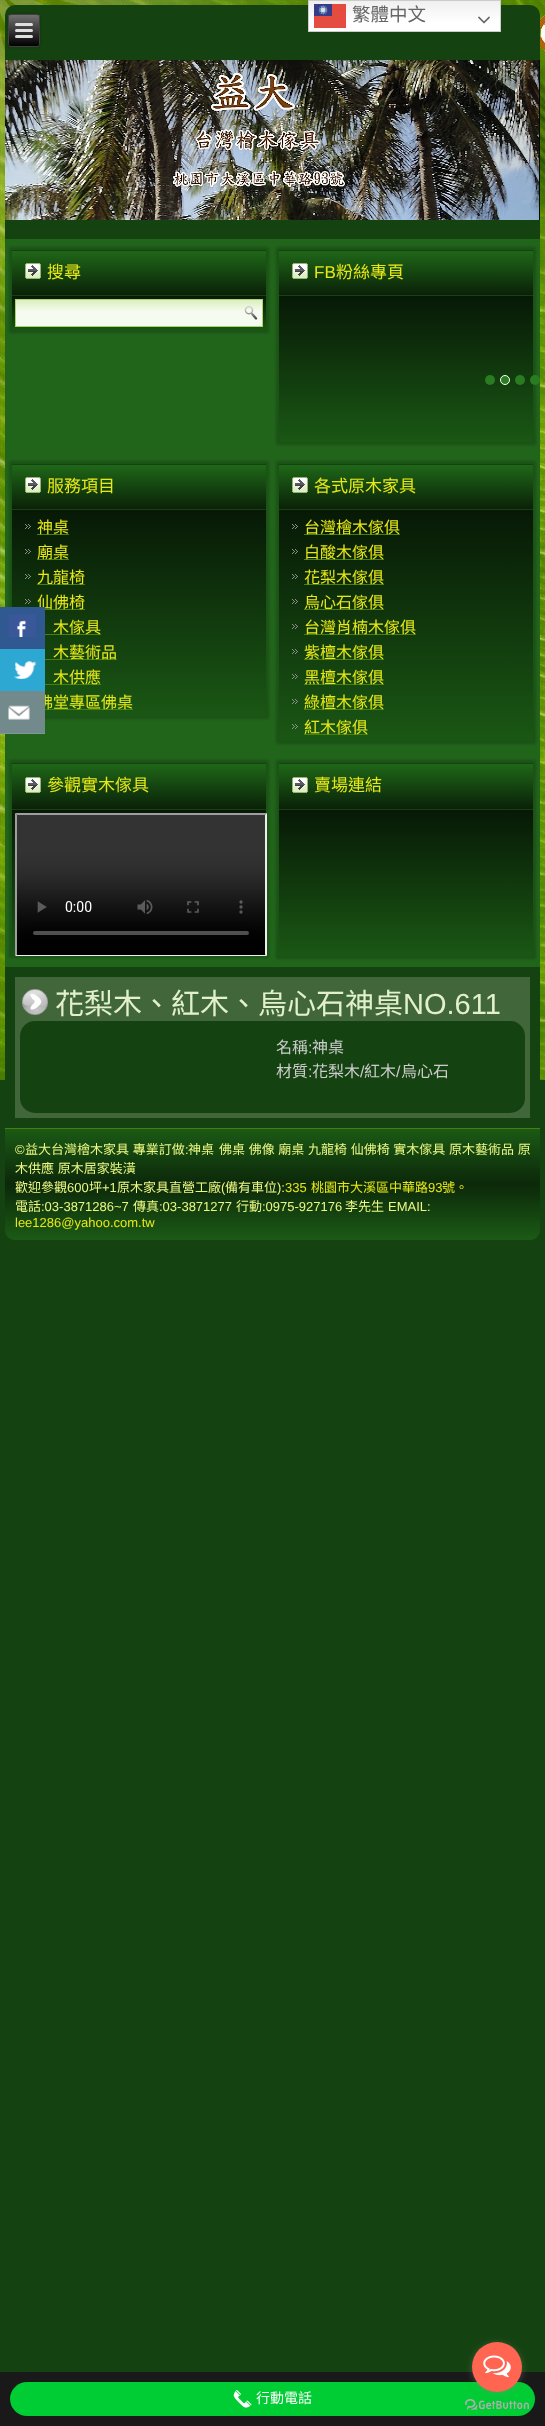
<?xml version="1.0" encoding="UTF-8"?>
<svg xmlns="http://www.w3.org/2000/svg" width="545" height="2426">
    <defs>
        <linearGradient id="g1" gradientUnits="userSpaceOnUse" x1="405" y1="0" x2="405" y2="32"><stop offset="0" stop-color="#EFEFEF"/><stop offset="0.7" stop-color="#FFFFFF"/></linearGradient>
        <filter id="blur1" x="-50%" y="-200%" width="200%" height="500%"><feGaussianBlur stdDeviation="1.5"/></filter>
        <linearGradient id="g2" gradientUnits="userSpaceOnUse" x1="139" y1="510" x2="139" y2="716"><stop offset="0" stop-color="#071906"/><stop offset="1" stop-color="#1A5714"/></linearGradient>
        <clipPath id="clip1"><rect x="8" y="14" width="32" height="33" rx="3"/></clipPath>
        <linearGradient id="g3" gradientUnits="userSpaceOnUse" x1="24" y1="15" x2="24" y2="46"><stop offset="0" stop-color="#707070"/><stop offset="1" stop-color="#000000"/></linearGradient>
        <linearGradient id="g4" gradientUnits="userSpaceOnUse" x1="406" y1="296" x2="406" y2="442"><stop offset="0" stop-color="#071906"/><stop offset="1" stop-color="#1A5714"/></linearGradient>
        <linearGradient id="g5" gradientUnits="userSpaceOnUse" x1="139" y1="251" x2="139" y2="295"><stop offset="0" stop-color="#1F6718"/><stop offset="1" stop-color="#0A2108"/></linearGradient>
        <linearGradient id="g6" gradientUnits="userSpaceOnUse" x1="139" y1="296" x2="139" y2="330"><stop offset="0" stop-color="#071906"/><stop offset="1" stop-color="#1A5714"/></linearGradient>
        <linearGradient id="g7" gradientUnits="userSpaceOnUse" x1="139" y1="300" x2="139" y2="326"><stop offset="0" stop-color="#DBEEBF"/><stop offset="0.4" stop-color="#F4FAEB"/><stop offset="0.5" stop-color="#F6FBEF"/><stop offset="1" stop-color="#F6FBEF"/></linearGradient>
        <linearGradient id="g8" gradientUnits="userSpaceOnUse" x1="406" y1="251" x2="406" y2="295"><stop offset="0" stop-color="#1F6718"/><stop offset="1" stop-color="#0A2108"/></linearGradient>
        <linearGradient id="g9" gradientUnits="userSpaceOnUse" x1="139" y1="465" x2="139" y2="509"><stop offset="0" stop-color="#1F6718"/><stop offset="1" stop-color="#0A2108"/></linearGradient>
        <linearGradient id="g10" gradientUnits="userSpaceOnUse" x1="406" y1="465" x2="406" y2="509"><stop offset="0" stop-color="#1F6718"/><stop offset="1" stop-color="#0A2108"/></linearGradient>
        <linearGradient id="g11" gradientUnits="userSpaceOnUse" x1="406" y1="510" x2="406" y2="741"><stop offset="0" stop-color="#071906"/><stop offset="1" stop-color="#1A5714"/></linearGradient>
        <linearGradient id="g12" gradientUnits="userSpaceOnUse" x1="139" y1="764" x2="139" y2="809"><stop offset="0" stop-color="#1F6718"/><stop offset="1" stop-color="#0A2108"/></linearGradient>
        <linearGradient id="g13" gradientUnits="userSpaceOnUse" x1="139" y1="810" x2="139" y2="955"><stop offset="0" stop-color="#071906"/><stop offset="1" stop-color="#1A5714"/></linearGradient>
        <linearGradient id="g14" gradientUnits="userSpaceOnUse" x1="406" y1="764" x2="406" y2="809"><stop offset="0" stop-color="#1F6718"/><stop offset="1" stop-color="#0A2108"/></linearGradient>
        <linearGradient id="g15" gradientUnits="userSpaceOnUse" x1="406" y1="810" x2="406" y2="956"><stop offset="0" stop-color="#071906"/><stop offset="1" stop-color="#1A5714"/></linearGradient>
        <linearGradient id="g16" gradientUnits="userSpaceOnUse" x1="273" y1="1128" x2="273" y2="1240"><stop offset="0" stop-color="#1B5B15"/><stop offset="0.4" stop-color="#0F320C"/><stop offset="0.5" stop-color="#0C290A"/><stop offset="0.6" stop-color="#0F320C"/><stop offset="1" stop-color="#1B5B15"/></linearGradient>
        <filter id="blur2" x="-50%" y="-200%" width="200%" height="500%"><feGaussianBlur stdDeviation="3.5"/></filter>
    </defs>
    <rect width="100%" height="100%" fill="#144210"/>
    <image x="0" y="0" width="545" height="1080" href="img_07.png"/>
    <rect x="5" y="5" width="535" height="1235" rx="10" fill="#144210"/>
    <rect x="309" y="1" width="191" height="30" fill="url(#g1)"/>
    <rect x="308.5" y="0.5" width="192" height="31" fill="none" stroke="#CCCCCC"/>
    <image x="314" y="4" width="32" height="24" href="img_01.png"/>
    <text x="352" y="21" font-family="Noto Sans CJK TC" font-size="18.5" fill="#666666">繁體中文</text>
    <image x="478" y="16" width="12" height="8" href="img_02.png"/>
    <rect x="5" y="239" width="535" height="728" fill="#21651B"/>
    <rect x="9" y="461" width="260" height="258" fill="#000000" fill-opacity="0.2" filter="url(#blur1)"/>
    <rect x="12" y="510" width="254" height="206" fill="url(#g2)"/>
    <rect x="37" y="609" width="48" height="1" fill="#497F10"/>
    <text x="37" y="608" font-family="Noto Sans CJK TC" font-size="16" fill="#E8E817">仙佛椅</text>
    <rect x="37" y="634" width="64" height="1" fill="#497F10"/>
    <rect x="0" y="607" width="45" height="42" fill="#305891"/>
    <image x="8" y="614" width="28" height="23" href="img_03.png"/>
    <rect x="37" y="659" width="80" height="1" fill="#497F10"/>
    <rect x="37" y="684" width="64" height="1" fill="#497F10"/>
    <rect x="0" y="649" width="45" height="42" fill="#2CA8D2"/>
    <image x="14" y="661" width="23" height="18" href="img_04.png"/>
    <rect x="37" y="709" width="96" height="1" fill="#497F10"/>
    <text x="37" y="708" font-family="Noto Sans CJK TC" font-size="16" fill="#E8E817">佛堂專區佛桌</text>
    <rect x="0" y="691" width="45" height="42" fill="#738A8D"/>
    <rect x="0" y="733" width="45" height="1" fill="#819698"/>
    <image x="8" y="705" width="22" height="15" href="img_05.png"/>
    <rect x="0" y="2372" width="545" height="54" fill="#1A1919"/>
    <rect x="10" y="2382" width="525" height="34" rx="17" fill="#00CC33"/>
    <image x="233" y="2389" width="19" height="19" href="img_06.png"/>
    <text x="256" y="2403" font-family="Noto Sans CJK TC" font-size="14" fill="#FFFFFF">行動電話</text>
    <rect x="8" y="14" width="32" height="33" rx="3" fill="#000000" fill-opacity="0.2" filter="url(#blur1)"/>
    <g clip-path="url(#clip1)">
        <rect x="8" y="15" width="32" height="31" fill="url(#g3)"/>
    </g>
    <rect x="8.5" y="14.5" width="31" height="32" rx="2.5" fill="none" stroke="#404040"/>
    <rect x="15" y="23" width="18" height="3" rx="1.5" fill="#E0E0E0"/>
    <rect x="15" y="29" width="18" height="3" rx="1.5" fill="#E0E0E0"/>
    <rect x="15" y="35" width="18" height="3" rx="1.5" fill="#E0E0E0"/>
    <image x="5" y="60" width="535" height="160" href="img_08.png"/>
    <rect x="276" y="247" width="260" height="198" fill="#000000" fill-opacity="0.2" filter="url(#blur1)"/>
    <rect x="279" y="296" width="254" height="146" fill="url(#g4)"/>
    <circle cx="490" cy="380" r="5" fill="#2A7C22"/>
    <circle cx="505" cy="380" r="4.5" fill="#2A7C22" stroke="#FFFFFF"/>
    <circle cx="520" cy="380" r="5" fill="#2A7C22"/>
    <circle cx="535" cy="380" r="5" fill="#2A7C22"/>
    <rect x="9" y="247" width="260" height="86" fill="#000000" fill-opacity="0.2" filter="url(#blur1)"/>
    <rect x="12" y="251" width="254" height="44" fill="url(#g5)"/>
    <rect x="12" y="250" width="254" height="1" fill="#144210"/>
    <rect x="12" y="295" width="254" height="1" fill="#144210"/>
    <image x="25" y="263" width="16" height="16" href="img_09.png"/>
    <text x="47" y="278" font-family="Noto Sans CJK TC" font-size="17" fill="#E8E817">搜尋</text>
    <rect x="12" y="296" width="254" height="34" fill="url(#g6)"/>
    <rect x="16" y="300" width="246" height="26" fill="url(#g7)"/>
    <rect x="15.5" y="299.5" width="247" height="27" fill="none" stroke="#A9D666"/>
    <image x="244" y="306" width="14" height="14" href="img_10.png"/>
    <rect x="279" y="251" width="254" height="44" fill="url(#g8)"/>
    <rect x="279" y="250" width="254" height="1" fill="#144210"/>
    <rect x="279" y="295" width="254" height="1" fill="#144210"/>
    <image x="292" y="263" width="16" height="16" href="img_09.png"/>
    <text x="314" y="278" font-family="Liberation Sans" font-size="17" fill="#E8E817">FB</text>
    <text x="336" y="278" font-family="Noto Sans CJK TC" font-size="17" fill="#E8E817">粉絲專頁</text>
    <rect x="12" y="465" width="254" height="44" fill="url(#g9)"/>
    <rect x="12" y="464" width="254" height="1" fill="#144210"/>
    <rect x="12" y="509" width="254" height="1" fill="#144210"/>
    <image x="25" y="477" width="16" height="16" href="img_09.png"/>
    <text x="47" y="492" font-family="Noto Sans CJK TC" font-size="17" fill="#E8E817">服務項目</text>
    <image x="25" y="524" width="6" height="5" href="img_11.png"/>
    <rect x="37" y="534" width="32" height="1" fill="#497F10"/>
    <text x="37" y="533" font-family="Noto Sans CJK TC" font-size="16" fill="#E8E817">神桌</text>
    <image x="25" y="549" width="6" height="5" href="img_12.png"/>
    <rect x="37" y="559" width="32" height="1" fill="#497F10"/>
    <text x="37" y="558" font-family="Noto Sans CJK TC" font-size="16" fill="#E8E817">廟桌</text>
    <image x="25" y="574" width="6" height="5" href="img_13.png"/>
    <rect x="37" y="584" width="48" height="1" fill="#497F10"/>
    <text x="37" y="583" font-family="Noto Sans CJK TC" font-size="16" fill="#E8E817">九龍椅</text>
    <image x="25" y="599" width="6" height="5" href="img_14.png"/>
    <text font-family="Noto Sans CJK TC" font-size="16" fill="#E8E817">
        <tspan x="53" y="633">木傢具</tspan>
        <tspan x="53" y="658">木藝術品</tspan>
        <tspan x="53" y="683">木供應</tspan>
    </text>
    <rect x="276" y="461" width="260" height="283" fill="#000000" fill-opacity="0.2" filter="url(#blur1)"/>
    <rect x="279" y="465" width="254" height="44" fill="url(#g10)"/>
    <rect x="279" y="464" width="254" height="1" fill="#144210"/>
    <rect x="279" y="509" width="254" height="1" fill="#144210"/>
    <image x="292" y="477" width="16" height="16" href="img_09.png"/>
    <text x="314" y="492" font-family="Noto Sans CJK TC" font-size="17" fill="#E8E817">各式原木家具</text>
    <rect x="279" y="510" width="254" height="231" fill="url(#g11)"/>
    <image x="292" y="524" width="6" height="5" href="img_15.png"/>
    <rect x="304" y="534" width="96" height="1" fill="#497F10"/>
    <text x="304" y="533" font-family="Noto Sans CJK TC" font-size="16" fill="#E8E817">台灣檜木傢俱</text>
    <image x="292" y="549" width="6" height="5" href="img_16.png"/>
    <rect x="304" y="559" width="80" height="1" fill="#497F10"/>
    <text x="304" y="558" font-family="Noto Sans CJK TC" font-size="16" fill="#E8E817">白酸木傢俱</text>
    <image x="292" y="574" width="6" height="5" href="img_17.png"/>
    <rect x="304" y="584" width="80" height="1" fill="#497F10"/>
    <text x="304" y="583" font-family="Noto Sans CJK TC" font-size="16" fill="#E8E817">花梨木傢俱</text>
    <image x="292" y="599" width="6" height="5" href="img_18.png"/>
    <rect x="304" y="609" width="80" height="1" fill="#497F10"/>
    <text x="304" y="608" font-family="Noto Sans CJK TC" font-size="16" fill="#E8E817">烏心石傢俱</text>
    <image x="292" y="624" width="6" height="5" href="img_19.png"/>
    <rect x="304" y="634" width="112" height="1" fill="#497F10"/>
    <text x="304" y="633" font-family="Noto Sans CJK TC" font-size="16" fill="#E8E817">台灣肖楠木傢俱</text>
    <image x="292" y="649" width="6" height="5" href="img_20.png"/>
    <rect x="304" y="659" width="80" height="1" fill="#497F10"/>
    <text x="304" y="658" font-family="Noto Sans CJK TC" font-size="16" fill="#E8E817">紫檀木傢俱</text>
    <image x="292" y="674" width="6" height="5" href="img_21.png"/>
    <rect x="304" y="684" width="80" height="1" fill="#497F10"/>
    <text x="304" y="683" font-family="Noto Sans CJK TC" font-size="16" fill="#E8E817">黑檀木傢俱</text>
    <image x="292" y="699" width="6" height="5" href="img_22.png"/>
    <rect x="304" y="709" width="80" height="1" fill="#497F10"/>
    <text x="304" y="708" font-family="Noto Sans CJK TC" font-size="16" fill="#E8E817">綠檀木傢俱</text>
    <image x="292" y="724" width="6" height="5" href="img_23.png"/>
    <rect x="304" y="734" width="64" height="1" fill="#497F10"/>
    <text x="304" y="733" font-family="Noto Sans CJK TC" font-size="16" fill="#E8E817">紅木傢俱</text>
    <rect x="9" y="760" width="260" height="198" fill="#000000" fill-opacity="0.2" filter="url(#blur1)"/>
    <rect x="12" y="764" width="254" height="45" fill="url(#g12)"/>
    <rect x="12" y="763" width="254" height="1" fill="#144210"/>
    <rect x="12" y="809" width="254" height="1" fill="#144210"/>
    <image x="25" y="777" width="16" height="16" href="img_24.png"/>
    <text x="47" y="791" font-family="Noto Sans CJK TC" font-size="17" fill="#E8E817">參觀實木傢具</text>
    <rect x="12" y="810" width="254" height="145" fill="url(#g13)"/>
    <path d="M 15 813 H 267 L 265 815 H 17 Z" fill="#9F9F9F"/>
    <path d="M 267 813 V 956 L 265 954 V 815 Z" fill="#EEEEEE"/>
    <path d="M 267 956 H 15 L 17 954 H 265 Z" fill="#EEEEEE"/>
    <path d="M 15 956 V 813 L 17 815 V 954 Z" fill="#9F9F9F"/>
    <image x="17" y="815" width="248" height="140" href="img_25.png"/>
    <rect x="276" y="760" width="260" height="199" fill="#000000" fill-opacity="0.2" filter="url(#blur1)"/>
    <rect x="279" y="764" width="254" height="45" fill="url(#g14)"/>
    <rect x="279" y="763" width="254" height="1" fill="#144210"/>
    <rect x="279" y="809" width="254" height="1" fill="#144210"/>
    <image x="292" y="777" width="16" height="16" href="img_24.png"/>
    <text x="314" y="791" font-family="Noto Sans CJK TC" font-size="17" fill="#E8E817">賣場連結</text>
    <rect x="279" y="810" width="254" height="146" fill="url(#g15)"/>
    <rect x="15" y="977" width="515" height="141" fill="#40663A"/>
    <image x="22" y="989" width="26" height="26" href="img_26.png"/>
    <text x="55" y="1014" font-family="Noto Sans CJK TC" font-size="29" fill="#E2F1CB">花梨木、紅木、烏心石神桌</text>
    <text x="403" y="1014" font-family="Liberation Sans" font-size="29" fill="#E2F1CB">NO.611</text>
    <rect x="20" y="1021" width="505" height="92" rx="15" fill="#144210"/>
    <text x="276" y="1053" font-family="Noto Sans CJK TC" font-size="16" fill="#CCCCCC">名稱</text>
    <text x="308" y="1053" font-family="Liberation Sans" font-size="16" fill="#CCCCCC">:</text>
    <text x="312" y="1053" font-family="Noto Sans CJK TC" font-size="16" fill="#CCCCCC">神桌</text>
    <text x="276" y="1077" font-family="Noto Sans CJK TC" font-size="16" fill="#CCCCCC">材質</text>
    <text x="308" y="1077" font-family="Liberation Sans" font-size="16" fill="#CCCCCC">:</text>
    <text x="312" y="1077" font-family="Noto Sans CJK TC" font-size="16" fill="#CCCCCC">花梨木</text>
    <text x="360" y="1077" font-family="Liberation Sans" font-size="16" fill="#CCCCCC">/</text>
    <text x="364" y="1077" font-family="Noto Sans CJK TC" font-size="16" fill="#CCCCCC">紅木</text>
    <text x="396" y="1077" font-family="Liberation Sans" font-size="16" fill="#CCCCCC">/</text>
    <text x="401" y="1077" font-family="Noto Sans CJK TC" font-size="16" fill="#CCCCCC">烏心石</text>
    <path d="M 5 1128 H 540 V 1230 C 540 1235.5 535.5 1240 530 1240 H 15 C 9.5 1240 5 1235.5 5 1230 Z" fill="url(#g16)"/>
    <rect x="5" y="1128" width="535" height="1" fill="#497F10"/>
    <text x="15" y="1154" font-family="Liberation Sans" font-size="13" fill="#EBF782">©</text>
    <text x="25" y="1154" word-spacing="0.75" font-family="Noto Sans CJK TC" font-size="13" fill="#EBF782">益大台灣檜木家具 專業訂做</text>
    <text x="185" y="1154" font-family="Liberation Sans" font-size="13" fill="#EBF782">:</text>
    <text x="188" y="1154" font-family="Noto Sans CJK TC" font-size="13" fill="#EBF782">神桌</text>
    <text x="219" y="1154" word-spacing="0.75" font-family="Noto Sans CJK TC" font-size="13" fill="#EBF782">佛桌 佛像 廟桌 九龍椅 仙佛椅 實木傢具 原木藝術品 原</text>
    <text font-family="Noto Sans CJK TC" font-size="13" fill="#EBF782">
        <tspan x="15" y="1173" word-spacing="0.75">木供應 原木居家裝潢</tspan>
        <tspan x="15" y="1192">歡迎參觀</tspan>
    </text>
    <text x="67" y="1192" font-family="Liberation Sans" font-size="13" fill="#EBF782">600</text>
    <text x="89" y="1192" font-family="Noto Sans CJK TC" font-size="13" fill="#EBF782">坪</text>
    <text x="102" y="1192" font-family="Liberation Sans" font-size="13" fill="#EBF782">+1</text>
    <text x="117" y="1192" font-family="Noto Sans CJK TC" font-size="13" fill="#EBF782">原木家具直營工廠</text>
    <text x="221" y="1192" font-family="Liberation Sans" font-size="13" fill="#EBF782">(</text>
    <text x="225" y="1192" font-family="Noto Sans CJK TC" font-size="13" fill="#EBF782">備有車位</text>
    <text x="277" y="1192" font-family="Liberation Sans" font-size="13" fill="#EBF782">):</text>
    <text x="285" y="1192" font-family="Liberation Sans" font-size="13" fill="#E8E817">335</text>
    <text x="311" y="1192" font-family="Noto Sans CJK TC" font-size="13" fill="#E8E817">桃園市大溪區中華路</text>
    <text x="428" y="1192" font-family="Liberation Sans" font-size="13" fill="#E8E817">93</text>
    <text x="442" y="1192" font-family="Noto Sans CJK TC" font-size="13" fill="#E8E817">號。</text>
    <text x="15" y="1211" font-family="Noto Sans CJK TC" font-size="13" fill="#EBF782">電話</text>
    <text x="41" y="1211" font-family="Liberation Sans" font-size="13" fill="#EBF782">:03-3871286~7</text>
    <text x="133" y="1211" font-family="Noto Sans CJK TC" font-size="13" fill="#EBF782">傳真</text>
    <text x="159" y="1211" font-family="Liberation Sans" font-size="13" fill="#EBF782">:03-3871277</text>
    <text x="236" y="1211" font-family="Noto Sans CJK TC" font-size="13" fill="#EBF782">行動</text>
    <text x="262" y="1211" font-family="Liberation Sans" font-size="13" fill="#EBF782">:0975-927176</text>
    <text x="345" y="1211" font-family="Noto Sans CJK TC" font-size="13" fill="#EBF782">李先生</text>
    <text x="388" y="1211" font-family="Liberation Sans" font-size="13" fill="#EBF782">EMAIL:</text>
    <text x="15" y="1227" font-family="Liberation Sans" font-size="13" fill="#E8E817">lee1286@yahoo.com.tw</text>
    <image x="465" y="2399" width="64" height="11" href="img_28.png"/>
    <rect x="472" y="2343" width="50" height="50" rx="25" fill="#888888" fill-opacity="0.4" filter="url(#blur2)"/>
    <circle cx="497" cy="2367" r="25" fill="#FF6550"/>
    <image x="483" y="2355" width="28" height="23" href="img_27.png"/>
</svg>
